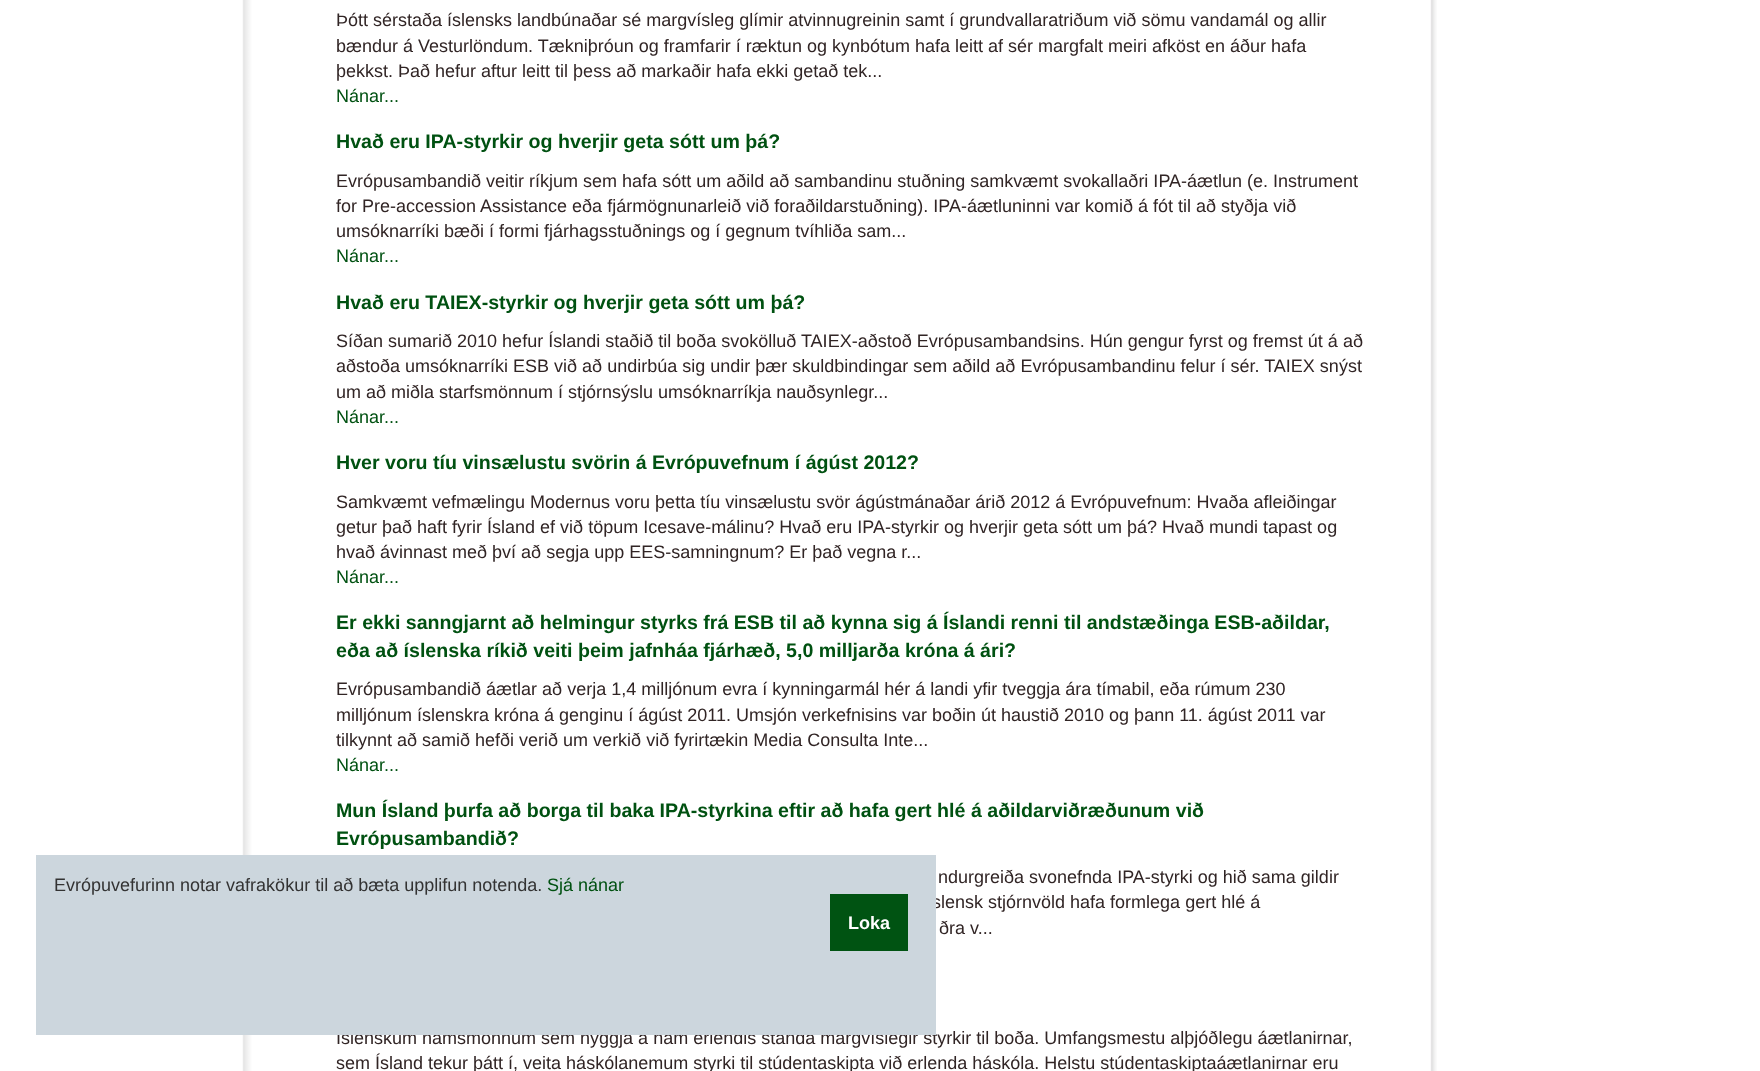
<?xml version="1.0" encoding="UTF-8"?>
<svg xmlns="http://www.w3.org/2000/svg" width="1760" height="1071">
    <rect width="100%" height="100%" fill="#FFFFFF"/>
    <image x="242" y="0" width="1195" height="1071" href="img_01.png"/>
    <text font-family="Liberation Sans" font-size="18" fill="#312525">
        <tspan x="336" y="26">Þótt sérstaða íslensks landbúnaðar sé margvísleg glímir atvinnugreinin samt í grundvallaratriðum við sömu vandamál og allir</tspan>
        <tspan x="336" y="52">bændur á Vesturlöndum. Tækniþróun og framfarir í ræktun og kynbótum hafa leitt af sér margfalt meiri afköst en áður hafa</tspan>
        <tspan x="336" y="77">þekkst. Það hefur aftur leitt til þess að markaðir hafa ekki getað tek...</tspan>
    </text>
    <text x="336" y="102" font-family="Liberation Sans" font-size="18" fill="#005111">Nánar...</text>
    <text x="336" y="148" font-family="Liberation Sans" font-size="19.62" font-weight="700" fill="#005111">Hvað eru IPA-styrkir og hverjir geta sótt um þá?</text>
    <text font-family="Liberation Sans" font-size="18" fill="#312525">
        <tspan x="336" y="187">Evrópusambandið veitir ríkjum sem hafa sótt um aðild að sambandinu stuðning samkvæmt svokallaðri IPA-áætlun (e. Instrument</tspan>
        <tspan x="336" y="212">for Pre-accession Assistance eða fjármögnunarleið við foraðildarstuðning). IPA-áætluninni var komið á fót til að styðja við</tspan>
        <tspan x="336" y="237">umsóknarríki bæði í formi fjárhagsstuðnings og í gegnum tvíhliða sam...</tspan>
    </text>
    <text x="336" y="262" font-family="Liberation Sans" font-size="18" fill="#005111">Nánar...</text>
    <text x="336" y="309" font-family="Liberation Sans" font-size="19.62" font-weight="700" fill="#005111">Hvað eru TAIEX-styrkir og hverjir geta sótt um þá?</text>
    <text font-family="Liberation Sans" font-size="18" fill="#312525">
        <tspan x="336" y="347">Síðan sumarið 2010 hefur Íslandi staðið til boða svokölluð TAIEX-aðstoð Evrópusambandsins. Hún gengur fyrst og fremst út á að</tspan>
        <tspan x="336" y="372">aðstoða umsóknarríki ESB við að undirbúa sig undir þær skuldbindingar sem aðild að Evrópusambandinu felur í sér. TAIEX snýst</tspan>
        <tspan x="336" y="398">um að miðla starfsmönnum í stjórnsýslu umsóknarríkja nauðsynlegr...</tspan>
    </text>
    <text x="336" y="423" font-family="Liberation Sans" font-size="18" fill="#005111">Nánar...</text>
    <text x="336" y="469" font-family="Liberation Sans" font-size="19.62" font-weight="700" fill="#005111">Hver voru tíu vinsælustu svörin á Evrópuvefnum í ágúst 2012?</text>
    <text font-family="Liberation Sans" font-size="18" fill="#312525">
        <tspan x="336" y="508">Samkvæmt vefmælingu Modernus voru þetta tíu vinsælustu svör ágústmánaðar árið 2012 á Evrópuvefnum: Hvaða afleiðingar</tspan>
        <tspan x="336" y="533">getur það haft fyrir Ísland ef við töpum Icesave-málinu? Hvað eru IPA-styrkir og hverjir geta sótt um þá? Hvað mundi tapast og</tspan>
        <tspan x="336" y="558">hvað ávinnast með því að segja upp EES-samningnum? Er það vegna r...</tspan>
    </text>
    <text x="336" y="583" font-family="Liberation Sans" font-size="18" fill="#005111">Nánar...</text>
    <text font-family="Liberation Sans" font-size="19.62" font-weight="700" fill="#005111">
        <tspan x="336" y="629">Er ekki sanngjarnt að helmingur styrks frá ESB til að kynna sig á Íslandi renni til andstæðinga ESB-aðildar,</tspan>
        <tspan x="336" y="657">eða að íslenska ríkið veiti þeim jafnháa fjárhæð, 5,0 milljarða króna á ári?</tspan>
    </text>
    <text font-family="Liberation Sans" font-size="18" fill="#312525">
        <tspan x="336" y="695">Evrópusambandið áætlar að verja 1,4 milljónum evra í kynningarmál hér á landi yfir tveggja ára tímabil, eða rúmum 230</tspan>
        <tspan x="336" y="721">milljónum íslenskra króna á genginu í ágúst 2011. Umsjón verkefnisins var boðin út haustið 2010 og þann 11. ágúst 2011 var</tspan>
        <tspan x="336" y="746">tilkynnt að samið hefði verið um verkið við fyrirtækin Media Consulta Inte...</tspan>
    </text>
    <text x="336" y="771" font-family="Liberation Sans" font-size="18" fill="#005111">Nánar...</text>
    <text font-family="Liberation Sans" font-size="19.62" font-weight="700" fill="#005111">
        <tspan x="336" y="817">Mun Ísland þurfa að borga til baka IPA-styrkina eftir að hafa gert hlé á aðildarviðræðunum við</tspan>
        <tspan x="336" y="845">Evrópusambandið?</tspan>
    </text>
    <text x="938" y="883" font-family="Liberation Sans" font-size="18" fill="#312525">ndurgreiða svonefnda IPA-styrki og hið sama gildir</text>
    <text x="932" y="908" font-family="Liberation Sans" font-size="18" fill="#312525">slensk stjórnvöld hafa formlega gert hlé á</text>
    <text x="939" y="934" font-family="Liberation Sans" font-size="18" fill="#312525">ðra v...</text>
    <text font-family="Liberation Sans" font-size="18" fill="#312525">
        <tspan x="336" y="1044">Íslenskum námsmönnum sem hyggja á nám erlendis standa margvíslegir styrkir til boða. Umfangsmestu alþjóðlegu áætlanirnar,</tspan>
        <tspan x="336" y="1069">sem Ísland tekur þátt í, veita háskólanemum styrki til stúdentaskipta við erlenda háskóla. Helstu stúdentaskiptaáætlanirnar eru</tspan>
    </text>
    <rect x="36" y="855" width="900" height="180" fill="#CCD6DD"/>
    <text x="54" y="891" font-family="Liberation Sans" font-size="18" fill="#333333">Evrópuvefurinn notar vafrakökur til að bæta upplifun notenda.</text>
    <text x="547" y="891" font-family="Liberation Sans" font-size="18" fill="#005111">Sjá nánar</text>
    <rect x="830" y="894" width="78" height="57" fill="#005312"/>
    <text x="848" y="929" font-family="Liberation Sans" font-size="18" font-weight="700" fill="#FFFFFF">Loka</text>
</svg>
